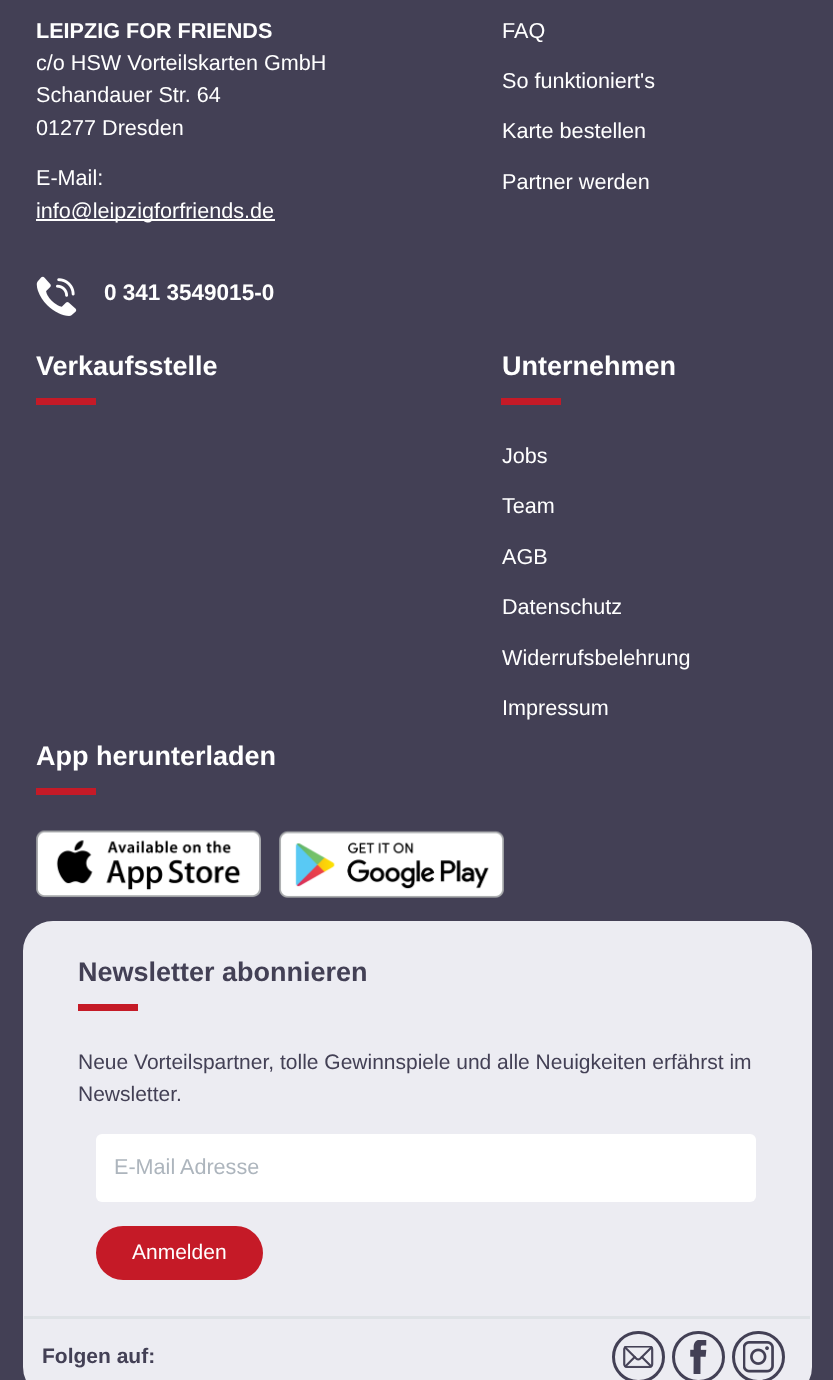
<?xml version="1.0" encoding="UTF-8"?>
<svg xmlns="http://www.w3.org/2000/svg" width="833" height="1380">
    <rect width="100%" height="100%" fill="#434055"/>
    <text x="36" y="38" font-family="Liberation Sans" font-size="21.6" font-weight="700" fill="#FFFFFF">LEIPZIG FOR FRIENDS</text>
    <text font-family="Liberation Sans" font-size="21.6" fill="#FFFFFF">
        <tspan x="36" y="70">c/o HSW Vorteilskarten GmbH</tspan>
        <tspan x="36" y="102">Schandauer Str. 64</tspan>
        <tspan x="36" y="135">01277 Dresden</tspan>
    </text>
    <text x="36" y="185" font-family="Liberation Sans" font-size="21.6" fill="#FFFFFF">E-Mail:</text>
    <rect x="36" y="219" width="239" height="2" fill="#FFFFFF"/>
    <text x="36" y="218" font-family="Liberation Sans" font-size="21.6" fill="#FFFFFF">info@leipzigforfriends.de</text>
    <image x="36" y="276" width="41" height="40" href="img_01.png"/>
    <text x="104" y="300" font-family="Liberation Sans" font-size="22.5" font-weight="700" fill="#FFFFFF">0 341 3549015-0</text>
    <text x="502" y="38" font-family="Liberation Sans" font-size="21.6" fill="#FFFFFF">FAQ</text>
    <text x="502" y="88" font-family="Liberation Sans" font-size="21.6" fill="#FFFFFF">So funktioniert's</text>
    <text x="502" y="138" font-family="Liberation Sans" font-size="21.6" fill="#FFFFFF">Karte bestellen</text>
    <text x="502" y="189" font-family="Liberation Sans" font-size="21.6" fill="#FFFFFF">Partner werden</text>
    <text x="36" y="375" font-family="Liberation Sans" font-size="27" font-weight="700" fill="#FFFFFF">Verkaufsstelle</text>
    <rect x="36" y="398" width="60" height="7" fill="#C51A27"/>
    <text x="502" y="375" font-family="Liberation Sans" font-size="27" font-weight="700" fill="#FFFFFF">Unternehmen</text>
    <rect x="501" y="398" width="60" height="7" fill="#C51A27"/>
    <text x="502" y="463" font-family="Liberation Sans" font-size="21.6" fill="#FFFFFF">Jobs</text>
    <text x="502" y="513" font-family="Liberation Sans" font-size="21.6" fill="#FFFFFF">Team</text>
    <text x="502" y="564" font-family="Liberation Sans" font-size="21.6" fill="#FFFFFF">AGB</text>
    <text x="502" y="614" font-family="Liberation Sans" font-size="21.6" fill="#FFFFFF">Datenschutz</text>
    <text x="502" y="665" font-family="Liberation Sans" font-size="21.6" fill="#FFFFFF">Widerrufsbelehrung</text>
    <text x="502" y="715" font-family="Liberation Sans" font-size="21.6" fill="#FFFFFF">Impressum</text>
    <text x="36" y="765" font-family="Liberation Sans" font-size="27" font-weight="700" fill="#FFFFFF">App herunterladen</text>
    <rect x="36" y="788" width="60" height="7" fill="#C51A27"/>
    <image x="36" y="830" width="225" height="68" href="img_02.png"/>
    <image x="279" y="830" width="225" height="68" href="img_03.png"/>
    <rect x="24" y="922" width="787" height="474" rx="29" fill="#ECECF2" stroke="#ECECF2" stroke-width="2"/>
    <text x="78" y="981" font-family="Liberation Sans" font-size="27" font-weight="700" fill="#434055">Newsletter abonnieren</text>
    <rect x="78" y="1004" width="60" height="7" fill="#C51A27"/>
    <text font-family="Liberation Sans" font-size="21" fill="#434055">
        <tspan x="78" y="1069">Neue Vorteilspartner, tolle Gewinnspiele und alle Neuigkeiten erfährst im</tspan>
        <tspan x="78" y="1101">Newsletter.</tspan>
    </text>
    <rect x="96" y="1134" width="660" height="68" rx="6" fill="#FFFFFF"/>
    <text x="114" y="1174" font-family="Liberation Sans" font-size="21.6" fill="#ADB5BD">E-Mail Adresse</text>
    <rect x="96" y="1226" width="167" height="54" rx="27" fill="#C51A27"/>
    <text x="132" y="1259" font-family="Liberation Sans" font-size="21" fill="#FFFFFF">Anmelden</text>
    <rect x="24" y="1316" width="786" height="3" fill="#DEE2E6"/>
    <text x="42" y="1363" font-family="Liberation Sans" font-size="21" font-weight="700" fill="#434055">Folgen auf:</text>
    <rect x="613.5" y="1332.5" width="50" height="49" rx="24.5" fill="none" stroke="#434055" stroke-width="3"/>
    <image x="623" y="1346" width="31" height="22" href="img_04.png"/>
    <rect x="673.5" y="1332.5" width="50" height="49" rx="24.5" fill="none" stroke="#434055" stroke-width="3"/>
    <image x="690" y="1340" width="17" height="34" href="img_05.png"/>
    <rect x="733.5" y="1332.5" width="50" height="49" rx="24.5" fill="none" stroke="#434055" stroke-width="3"/>
    <image x="743" y="1341" width="31" height="32" href="img_06.png"/>
</svg>
